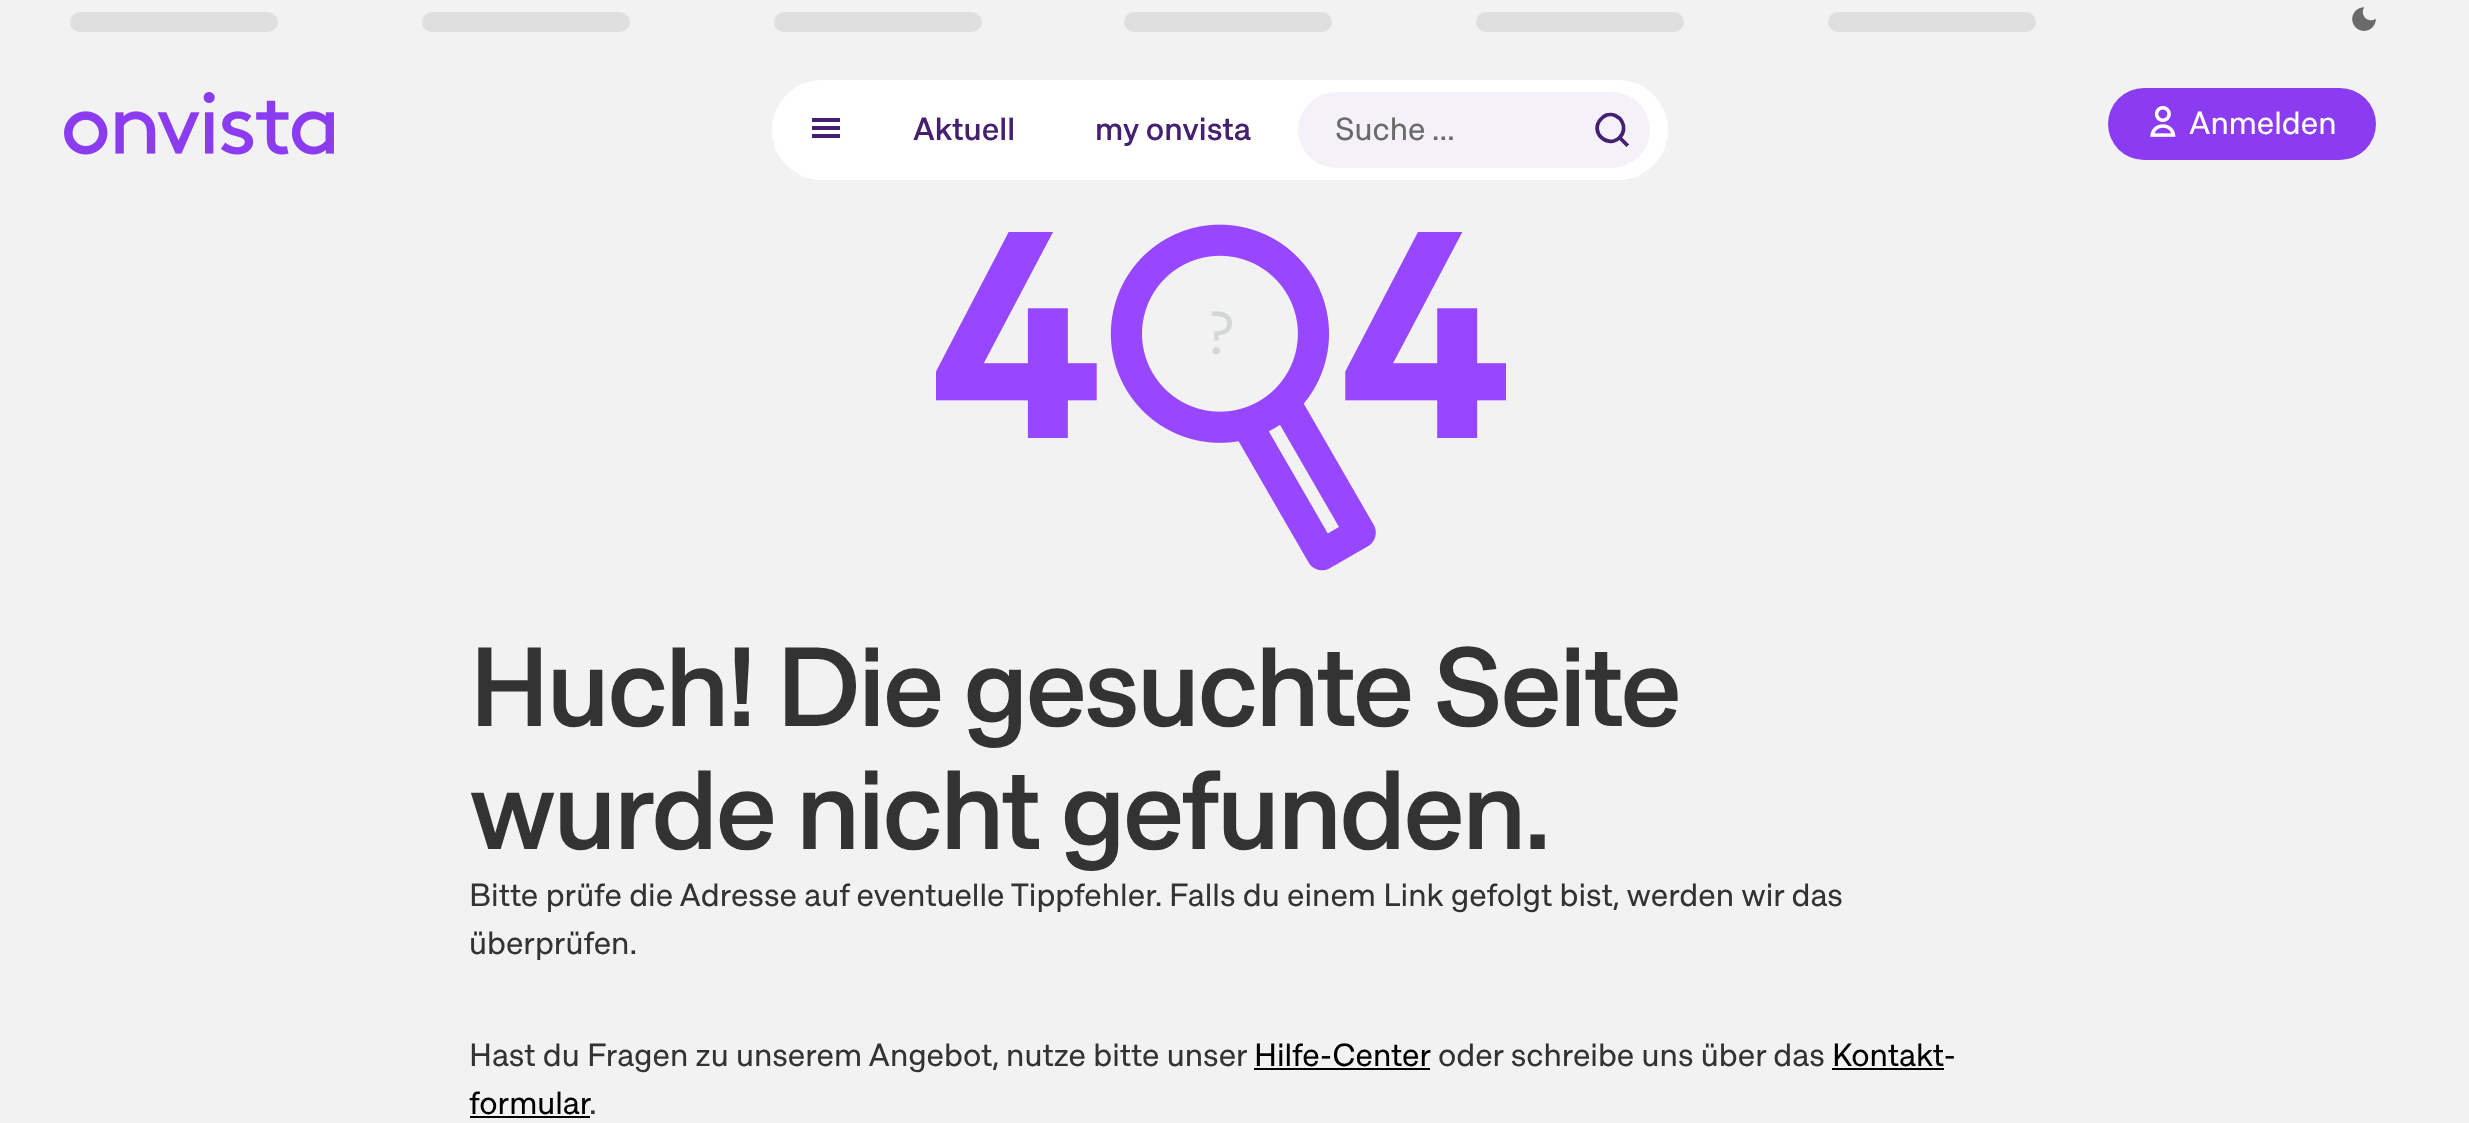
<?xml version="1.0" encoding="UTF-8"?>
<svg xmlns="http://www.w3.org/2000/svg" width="2469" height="1123">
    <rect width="100%" height="100%" fill="#F2F2F2"/>
    <rect x="70" y="12" width="208" height="20" rx="10" fill="#DFDFDF"/>
    <rect x="422" y="12" width="208" height="20" rx="10" fill="#DFDFDF"/>
    <rect x="774" y="12" width="208" height="20" rx="10" fill="#DFDFDF"/>
    <rect x="1124" y="12" width="208" height="20" rx="10" fill="#DFDFDF"/>
    <rect x="1476" y="12" width="208" height="20" rx="10" fill="#DFDFDF"/>
    <rect x="1828" y="12" width="208" height="20" rx="10" fill="#DFDFDF"/>
    <image x="2352" y="7" width="24" height="24" href="img_01.png"/>
    <image x="64" y="92" width="270" height="63" href="img_02.png"/>
    <rect x="772" y="80" width="896" height="100" rx="50" fill="#FFFFFF"/>
    <image x="812" y="118" width="28" height="20" href="img_03.png"/>
    <text x="913" y="140" font-family="'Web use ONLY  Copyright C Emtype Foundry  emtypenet'" font-size="32" font-weight="500" fill="#451F70">Aktuell</text>
    <text x="1095" y="140" font-family="'Web use ONLY  Copyright C Emtype Foundry  emtypenet'" font-size="32" font-weight="500" fill="#451F70">my onvista</text>
    <rect x="1298" y="92" width="352" height="76" rx="38" fill="#F5F1F9"/>
    <text x="1335" y="140" font-family="'Web use ONLY  Copyright C Emtype Foundry  emtypenet'" font-size="32" fill="#6A6A6A">Suche …</text>
    <path d="M 1626.5 144.5 L 1619.5 137.5 M 1619.5 137.5 C 1629.5 128 1620 111.5 1606.5 115 C 1604.5 116 1602.5 117 1601 119 C 1589 131.5 1607.5 149.5 1619.5 137.5 Z" fill="none" stroke="#451F70" stroke-width="3.7" stroke-linecap="square"/>
    <rect x="2108" y="88" width="268" height="72" rx="36" fill="#8C3CF0"/>
    <image x="2150" y="106" width="26" height="31" href="img_04.png"/>
    <text x="2189" y="134" font-family="'Web use ONLY  Copyright C Emtype Foundry  emtypenet'" font-size="32" fill="#FFFFFF">Anmelden</text>
    <image x="936" y="224" width="570" height="347" href="img_05.png"/>
    <text font-family="'Web use ONLY  Copyright C Emtype Foundry  emtypenet'" font-size="112" font-weight="500" letter-spacing="-2.8" fill="#333333">
        <tspan x="469" y="726">Huch! Die gesuchte Seite</tspan>
        <tspan x="469" y="849">wurde nicht gefunden.</tspan>
    </text>
    <text font-family="'Web use ONLY  Copyright C Emtype Foundry  emtypenet'" font-size="32" fill="#333333">
        <tspan x="469" y="906">Bitte prüfe die Adresse auf eventuelle Tippfehler. Falls du einem Link gefolgt bist, werden wir das</tspan>
        <tspan x="469" y="954">überprüfen.</tspan>
    </text>
    <text x="469" y="1066" font-family="'Web use ONLY  Copyright C Emtype Foundry  emtypenet'" font-size="32" fill="#333333">Hast du Fragen zu unserem Angebot, nutze bitte unser</text>
    <text x="1254" y="1066" font-family="'Web use ONLY  Copyright C Emtype Foundry  emtypenet'" font-size="32" fill="#000000">Hilfe-Center</text>
    <rect x="1254" y="1068" width="176" height="2" fill="#000000"/>
    <text x="1438" y="1066" font-family="'Web use ONLY  Copyright C Emtype Foundry  emtypenet'" font-size="32" fill="#333333">oder schreibe uns über das</text>
    <text x="1832" y="1066" font-family="'Web use ONLY  Copyright C Emtype Foundry  emtypenet'" font-size="32" fill="#000000">Kontakt-</text>
    <rect x="1832" y="1068" width="112" height="2" fill="#000000"/>
    <text x="469" y="1114" font-family="'Web use ONLY  Copyright C Emtype Foundry  emtypenet'" font-size="32" fill="#000000">formular</text>
    <rect x="470" y="1116" width="120" height="2" fill="#000000"/>
    <text x="589" y="1114" font-family="'Web use ONLY  Copyright C Emtype Foundry  emtypenet'" font-size="32" fill="#333333">.</text>
</svg>
